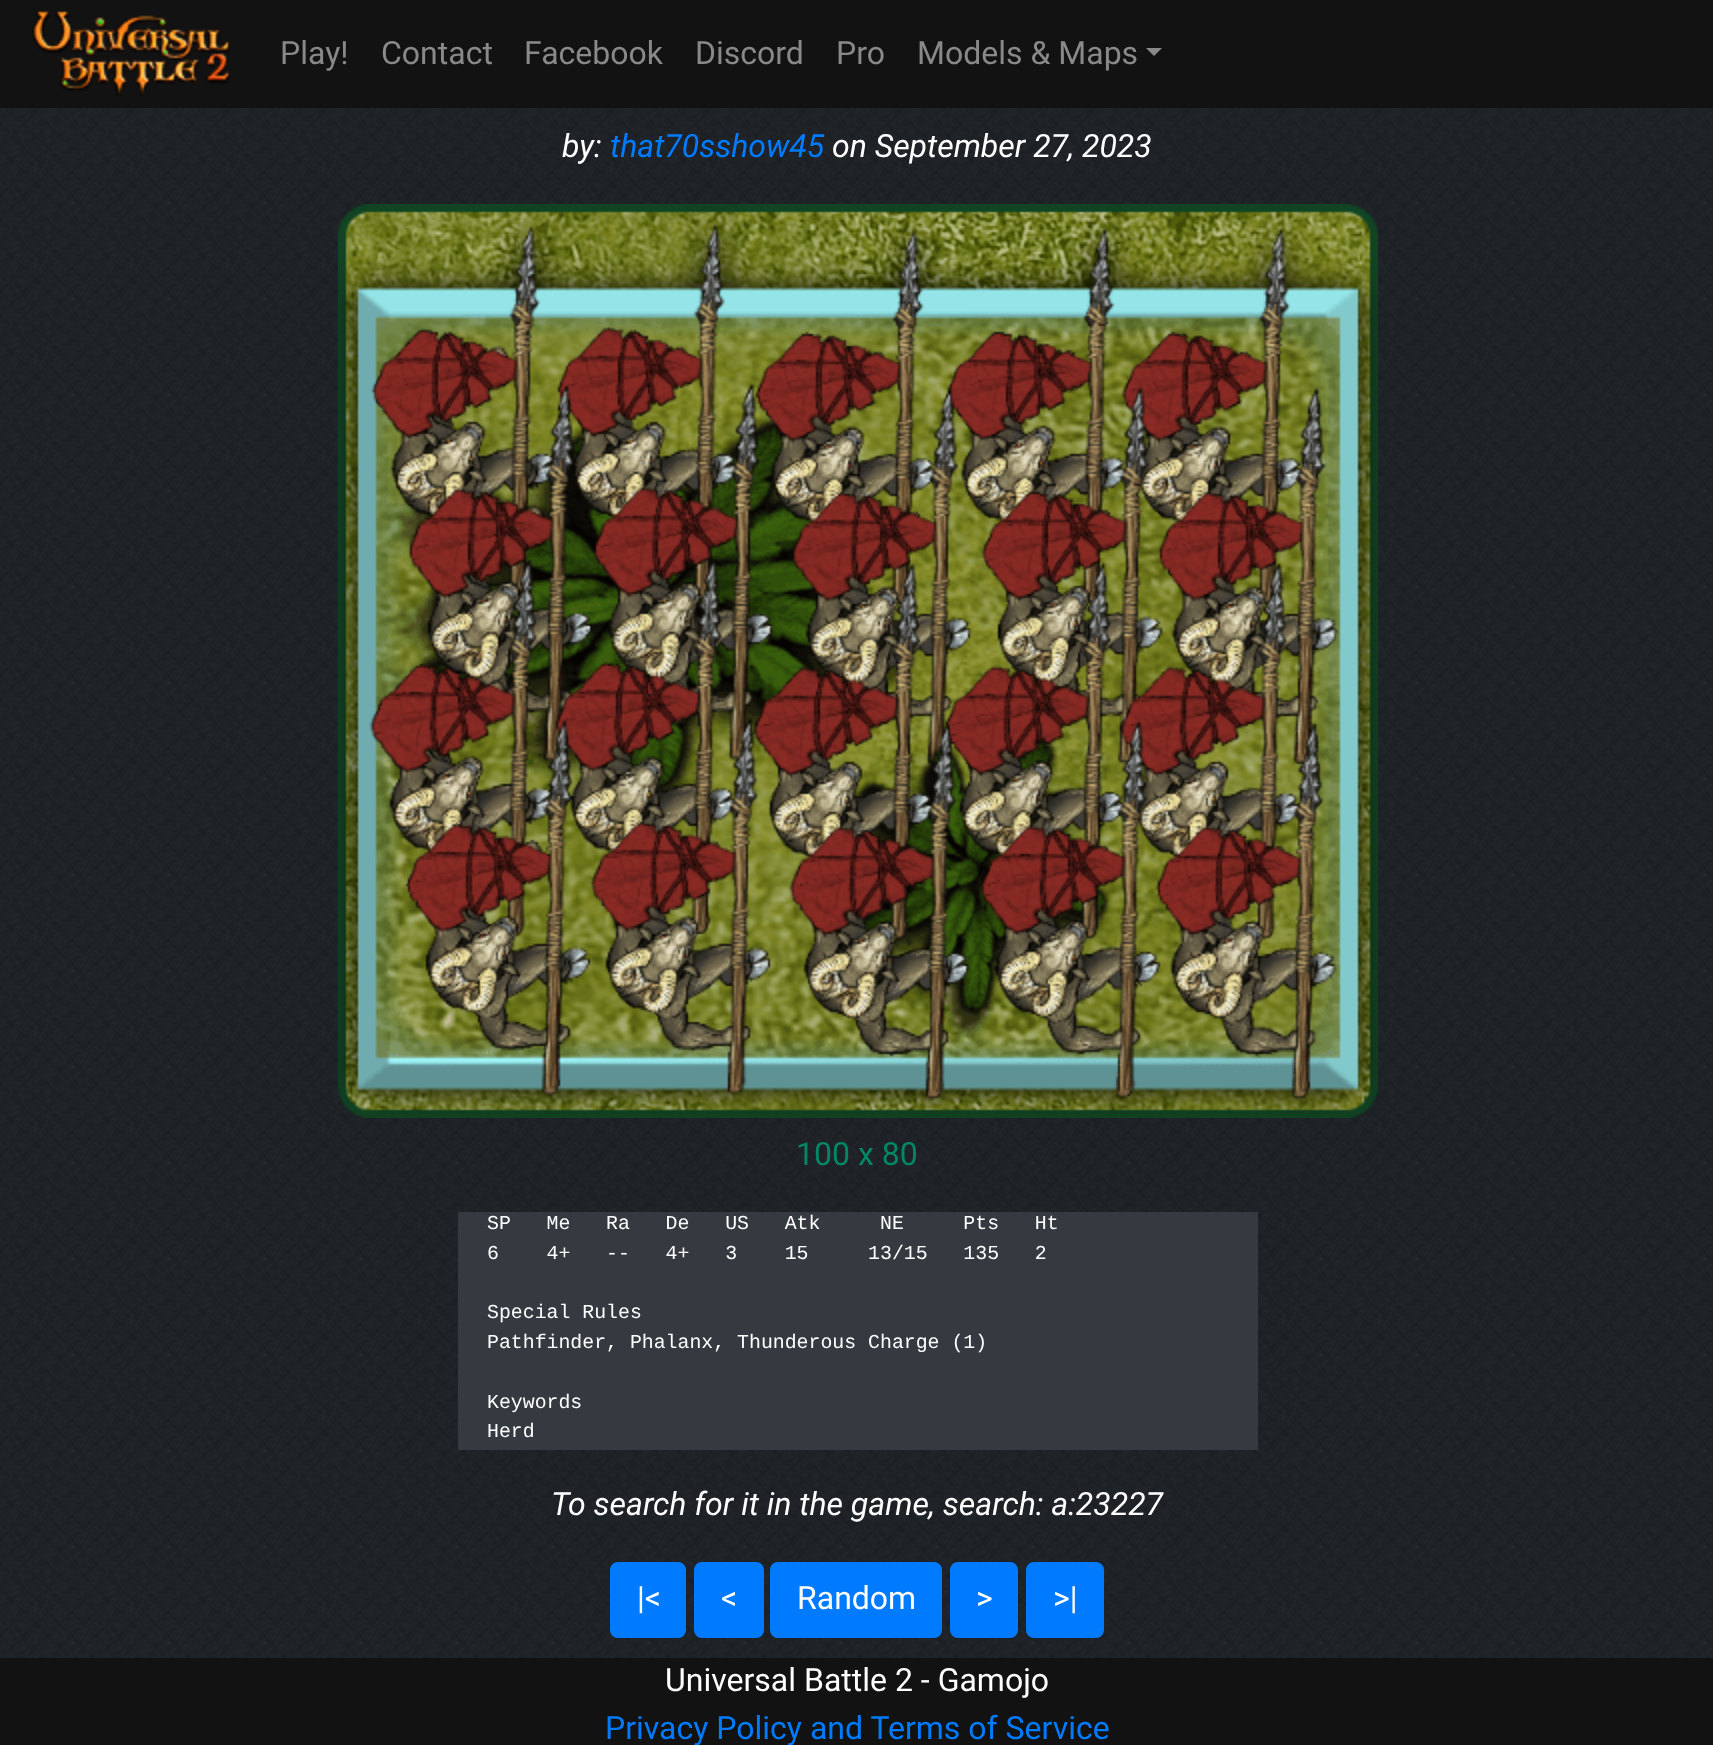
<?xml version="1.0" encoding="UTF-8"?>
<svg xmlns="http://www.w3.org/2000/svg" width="1713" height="1745">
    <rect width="100%" height="100%" fill="#FFFFFF"/>
    <image x="0" y="108" width="1713" height="1550" href="img_01.png"/>
    <rect x="0" y="0" width="1713" height="108" fill="#121212"/>
    <image x="32" y="10" width="198" height="86" href="img_02.png"/>
    <text x="280" y="64" font-family="Roboto" font-size="32" fill="#898989">Play!</text>
    <text x="381" y="64" font-family="Roboto" font-size="32" fill="#898989">Contact</text>
    <text x="524" y="64" font-family="Roboto" font-size="32" fill="#898989">Facebook</text>
    <text x="695" y="64" font-family="Roboto" font-size="32" fill="#898989">Discord</text>
    <text x="836" y="64" font-family="Roboto" font-size="32" fill="#898989">Pro</text>
    <text x="917" y="64" font-family="Roboto" font-size="32" fill="#898989">Models &amp; Maps</text>
    <path d="M 1146 48 H 1162 L 1154 56 Z" fill="#898989"/>
    <text x="562" y="157" font-family="Roboto" font-size="32" font-style="italic" fill="#FFFFFF">by:</text>
    <text x="610" y="157" font-family="Roboto" font-size="32" font-style="italic" fill="#007BFF">that70sshow45</text>
    <text x="832" y="157" font-family="Roboto" font-size="32" font-style="italic" fill="#FFFFFF">on September 27, 2023</text>
    <image x="338" y="204" width="1040" height="914" href="img_03.png"/>
    <text x="796" y="1165" font-family="Roboto" font-size="32" fill="#008866">100 x 80</text>
    <rect x="458" y="1212" width="800" height="238" fill="#343A40"/>
    <text font-family="Liberation Mono" font-size="19.85" fill="#FFFFFF" xml:space="preserve"><tspan x="487" y="1229">SP   Me   Ra   De   US   Atk     NE     Pts   Ht</tspan><tspan x="487" y="1259">6    4+   --   4+   3    15     13/15   135   2</tspan></text>
    <text font-family="Liberation Mono" font-size="19.85" fill="#FFFFFF">
        <tspan x="487" y="1318">Special Rules</tspan>
        <tspan x="487" y="1348">Pathfinder, Phalanx, Thunderous Charge (1)</tspan>
    </text>
    <text font-family="Liberation Mono" font-size="19.85" fill="#FFFFFF">
        <tspan x="487" y="1408">Keywords</tspan>
        <tspan x="487" y="1437">Herd</tspan>
    </text>
    <text x="551" y="1515" font-family="Roboto" font-size="32" font-style="italic" fill="#FFFFFF">To search for it in the game, search: a:23227</text>
    <rect x="611" y="1563" width="74" height="74" rx="7" fill="#007BFF" stroke="#007BFF" stroke-width="2"/>
    <text x="637" y="1609" font-family="Roboto" font-size="32" fill="#FFFFFF">|&lt;</text>
    <rect x="695" y="1563" width="68" height="74" rx="7" fill="#007BFF" stroke="#007BFF" stroke-width="2"/>
    <text x="721" y="1609" font-family="Roboto" font-size="32" fill="#FFFFFF">&lt;</text>
    <rect x="771" y="1563" width="170" height="74" rx="7" fill="#007BFF" stroke="#007BFF" stroke-width="2"/>
    <text x="797" y="1609" font-family="Roboto" font-size="32" fill="#FFFFFF">Random</text>
    <rect x="951" y="1563" width="66" height="74" rx="7" fill="#007BFF" stroke="#007BFF" stroke-width="2"/>
    <text x="976" y="1609" font-family="Roboto" font-size="32" fill="#FFFFFF">&gt;</text>
    <rect x="1027" y="1563" width="76" height="74" rx="7" fill="#007BFF" stroke="#007BFF" stroke-width="2"/>
    <text x="1053" y="1609" font-family="Roboto" font-size="32" fill="#FFFFFF">&gt;|</text>
    <rect x="0" y="1658" width="1713" height="87" fill="#121212"/>
    <text x="665" y="1691" font-family="Roboto" font-size="32" fill="#FFFFFF">Universal Battle 2 - Gamojo</text>
    <text x="605" y="1739" font-family="Roboto" font-size="32" fill="#007BFF">Privacy Policy and Terms of Service</text>
</svg>
